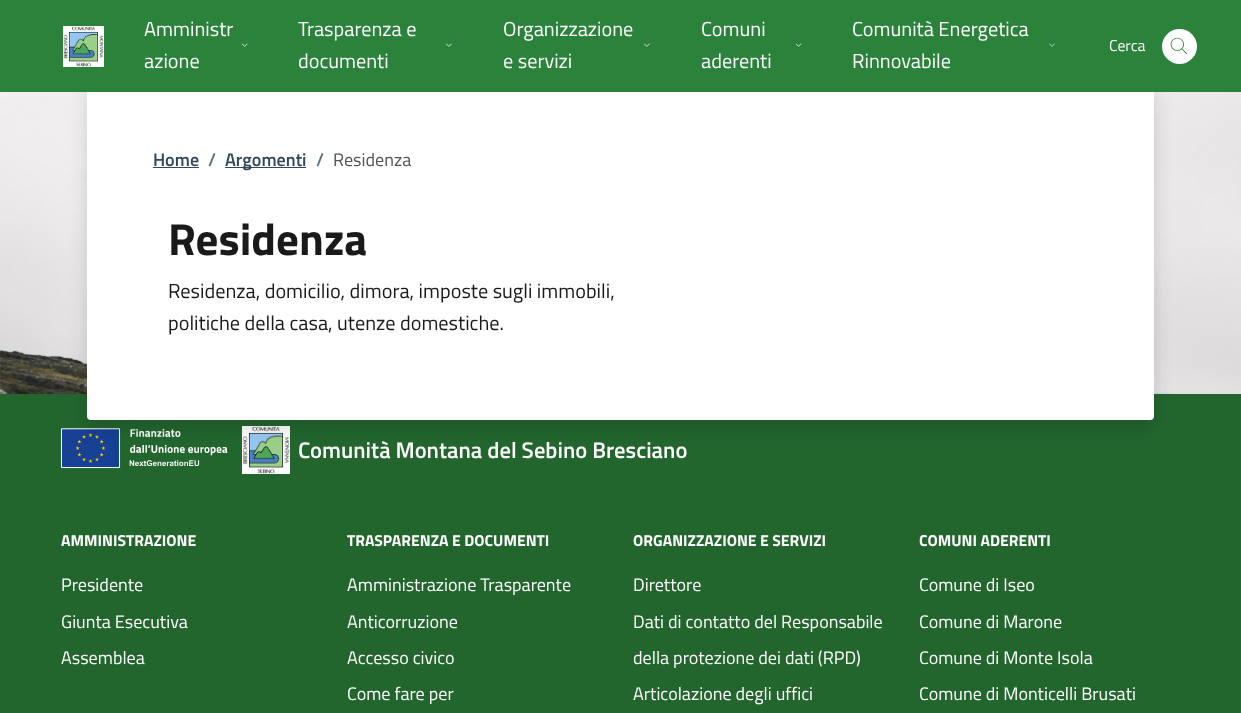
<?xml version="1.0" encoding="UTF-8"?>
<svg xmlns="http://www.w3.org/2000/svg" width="1241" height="713">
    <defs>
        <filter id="blur1" x="-50%" y="-200%" width="200%" height="500%"><feGaussianBlur stdDeviation="9"/></filter>
    </defs>
    <rect width="100%" height="100%" fill="#22662E"/>
    <image x="0" y="92" width="1241" height="302" href="img_08.png"/>
    <image x="61" y="428" width="167" height="41" href="img_09.png"/>
    <image x="242" y="426" width="48" height="48" href="img_10.png"/>
    <rect x="87" y="90" width="1067" height="339" rx="4" fill="#000000" fill-opacity="0.15" filter="url(#blur1)"/>
    <rect x="87" y="81" width="1067" height="339" rx="4" fill="#FFFFFF"/>
    <rect x="0" y="0" width="1241" height="92" fill="#2B823B"/>
    <image x="63" y="26" width="41" height="41" href="img_01.png"/>
    <text font-family="Titillium Web" font-size="20.3" fill="#FFFFFF">
        <tspan x="144" y="36">Amministr</tspan>
        <tspan x="144" y="68">azione</tspan>
    </text>
    <image x="242" y="43" width="6" height="4" href="img_02.png"/>
    <text font-family="Titillium Web" font-size="20.3" fill="#FFFFFF">
        <tspan x="298" y="36">Trasparenza e</tspan>
        <tspan x="298" y="68">documenti</tspan>
    </text>
    <image x="446" y="43" width="6" height="4" href="img_03.png"/>
    <text font-family="Titillium Web" font-size="20.3" fill="#FFFFFF">
        <tspan x="503" y="36">Organizzazione</tspan>
        <tspan x="503" y="68">e servizi</tspan>
    </text>
    <image x="644" y="43" width="6" height="4" href="img_04.png"/>
    <text font-family="Titillium Web" font-size="20.3" fill="#FFFFFF">
        <tspan x="701" y="36">Comuni</tspan>
        <tspan x="701" y="68">aderenti</tspan>
    </text>
    <image x="796" y="43" width="6" height="4" href="img_05.png"/>
    <text font-family="Titillium Web" font-size="20.3" fill="#FFFFFF">
        <tspan x="852" y="36">Comunità Energetica</tspan>
        <tspan x="852" y="68">Rinnovabile</tspan>
    </text>
    <image x="1049" y="43" width="6" height="4" href="img_06.png"/>
    <text x="1109" y="51" font-family="Titillium Web" font-size="15.75" fill="#FFFFFF">Cerca</text>
    <circle cx="1179.5" cy="46.5" r="17.5" fill="#FFFFFF"/>
    <image x="1170" y="37" width="18" height="18" href="img_07.png"/>
    <text x="153" y="166" font-family="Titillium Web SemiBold" font-size="18.1" font-weight="600" fill="#30475F">Home</text>
    <rect x="153" y="167" width="46" height="1" fill="#30475F"/>
    <text x="208" y="166" font-family="Titillium Web SemiBold" font-size="18.1" font-weight="600" fill="#5D7083">/</text>
    <rect x="225" y="167" width="81" height="1" fill="#30475F"/>
    <text x="225" y="166" font-family="Titillium Web SemiBold" font-size="18.1" font-weight="600" fill="#30475F">Argomenti</text>
    <text x="316" y="166" font-family="Titillium Web SemiBold" font-size="18.1" font-weight="600" fill="#5D7083">/</text>
    <text x="333" y="166" font-family="Titillium Web" font-size="18.1" fill="#535353">Residenza</text>
    <text x="168" y="255" font-family="Titillium Web" font-size="45" font-weight="700" fill="#1A1A1A">Residenza</text>
    <text font-family="Titillium Web" font-size="20.3" fill="#1A1A1A">
        <tspan x="168" y="298">Residenza, domicilio, dimora, imposte sugli immobili,</tspan>
        <tspan x="168" y="330">politiche della casa, utenze domestiche.</tspan>
    </text>
    <text x="298" y="458" font-family="Titillium Web SemiBold" font-size="22.6" font-weight="600" fill="#FFFFFF">Comunità Montana del Sebino Bresciano</text>
    <text x="61" y="546" font-family="Titillium Web" font-size="15.75" font-weight="700" fill="#FFFFFF">AMMINISTRAZIONE</text>
    <text x="61" y="591" font-family="Titillium Web" font-size="18.1" fill="#FFFFFF">Presidente</text>
    <text font-family="Titillium Web" font-size="18.1" fill="#FFFFFF">
        <tspan x="61" y="628">Giunta Esecutiva</tspan>
        <tspan x="61" y="664">Assemblea</tspan>
    </text>
    <text x="347" y="546" font-family="Titillium Web" font-size="15.75" font-weight="700" fill="#FFFFFF">TRASPARENZA E DOCUMENTI</text>
    <text x="347" y="591" font-family="Titillium Web" font-size="18.1" fill="#FFFFFF">Amministrazione Trasparente</text>
    <text font-family="Titillium Web" font-size="18.1" fill="#FFFFFF">
        <tspan x="347" y="628">Anticorruzione</tspan>
        <tspan x="347" y="664">Accesso civico</tspan>
        <tspan x="347" y="700">Come fare per</tspan>
    </text>
    <text x="633" y="546" font-family="Titillium Web" font-size="15.75" font-weight="700" fill="#FFFFFF">ORGANIZZAZIONE E SERVIZI</text>
    <text x="633" y="591" font-family="Titillium Web" font-size="18.1" fill="#FFFFFF">Direttore</text>
    <text font-family="Titillium Web" font-size="18.1" fill="#FFFFFF">
        <tspan x="633" y="628">Dati di contatto del Responsabile</tspan>
        <tspan x="633" y="664">della protezione dei dati (RPD)</tspan>
        <tspan x="633" y="700">Articolazione degli uffici</tspan>
    </text>
    <text x="919" y="546" font-family="Titillium Web" font-size="15.75" font-weight="700" fill="#FFFFFF">COMUNI ADERENTI</text>
    <text x="919" y="591" font-family="Titillium Web" font-size="18.1" fill="#FFFFFF">Comune di Iseo</text>
    <text font-family="Titillium Web" font-size="18.1" fill="#FFFFFF">
        <tspan x="919" y="628">Comune di Marone</tspan>
        <tspan x="919" y="664">Comune di Monte Isola</tspan>
        <tspan x="919" y="700">Comune di Monticelli Brusati</tspan>
    </text>
</svg>
